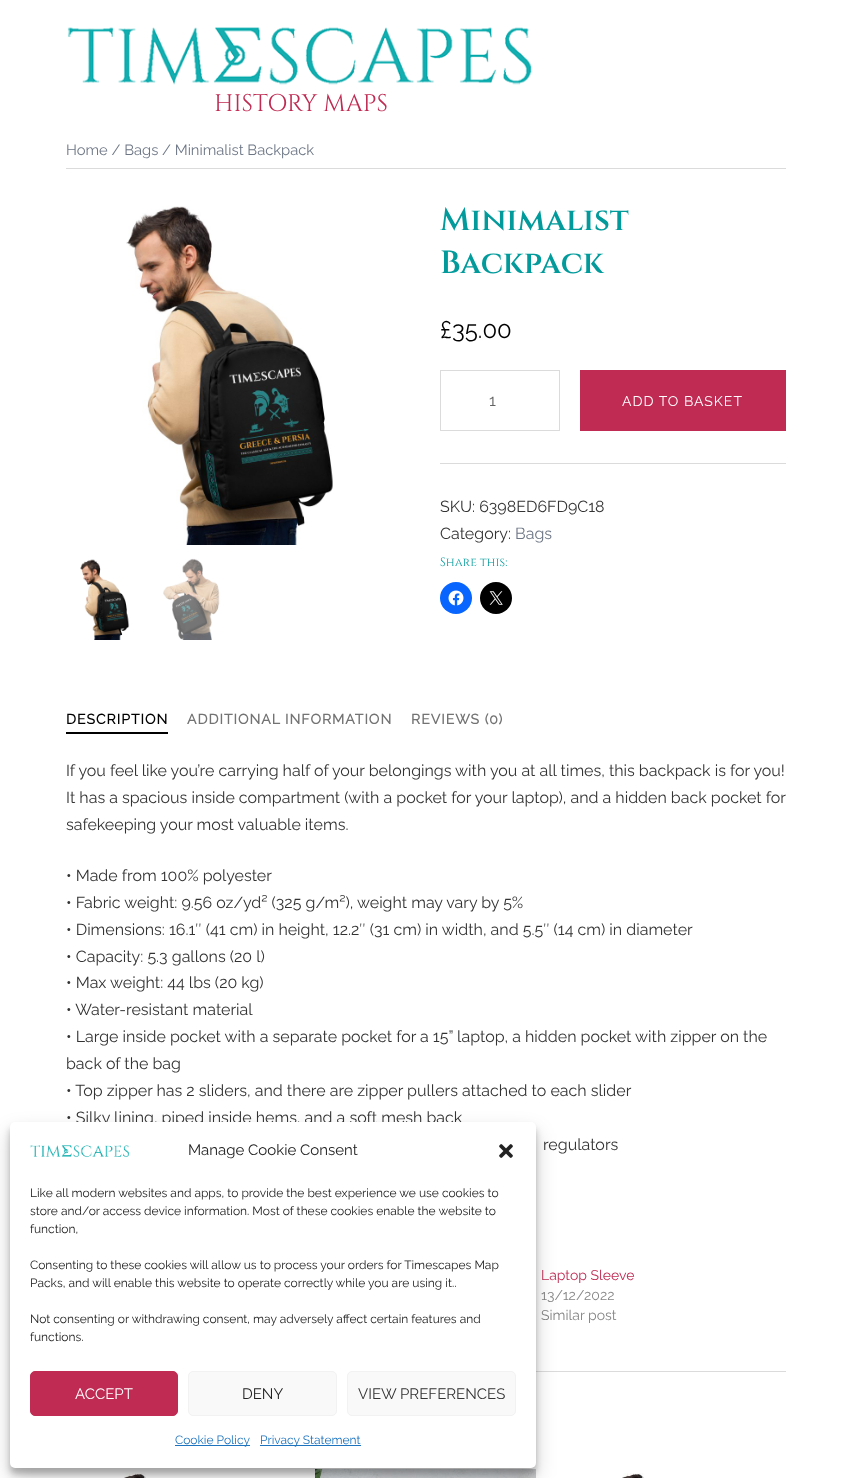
<?xml version="1.0" encoding="UTF-8"?>
<svg xmlns="http://www.w3.org/2000/svg" width="851" height="1478">
    <defs>
        <filter id="blur1" x="-50%" y="-200%" width="200%" height="500%"><feGaussianBlur stdDeviation="3"/></filter>
        <filter id="blur2" x="-50%" y="-200%" width="200%" height="500%"><feGaussianBlur stdDeviation="10"/></filter>
    </defs>
    <rect width="100%" height="100%" fill="#FFFFFF"/>
    <image x="67" y="27" width="465" height="58" href="img_01.png"/>
    <text x="214" y="111" font-family="Cinzel" font-size="24" fill="#BF2B53">HISTORY MAPS</text>
    <rect x="66" y="168" width="720" height="1" fill="#DBDBDB"/>
    <text x="66" y="155" font-family="Raleway" font-size="14.75" font-weight="100" fill="#6D7685">Home / Bags / Minimalist Backpack</text>
    <image x="126" y="206" width="207" height="339" href="img_02.png"/>
    <image x="80" y="559" width="50" height="81" href="img_03.png"/>
    <image x="163" y="558" width="57" height="82" href="img_04.png"/>
    <text font-family="Cinzel" font-size="32" font-weight="600" fill="#029A9B">
        <tspan x="440" y="230">Minimalist</tspan>
        <tspan x="440" y="273">Backpack</tspan>
    </text>
    <text x="440" y="338" font-family="Raleway" font-size="24" font-weight="100" fill="#000000">£35.00</text>
    <rect x="440.5" y="370.5" width="119" height="60" fill="none" stroke="#DBDBDB"/>
    <text x="489" y="406" font-family="Raleway" font-size="16" font-weight="100" fill="#636363">1</text>
    <rect x="580" y="370" width="206" height="61" fill="#BF2B53"/>
    <text x="622" y="406" font-family="Raleway" font-size="14" font-weight="100" letter-spacing="1" fill="#FFFFFF">ADD TO BASKET</text>
    <rect x="440" y="463" width="346" height="1" fill="#DBDBDB"/>
    <text font-family="Raleway" font-size="16" font-weight="100" fill="#333333">
        <tspan x="440" y="512">SKU: 6398ED6FD9C18</tspan>
        <tspan x="440" y="539">Category:</tspan>
    </text>
    <text x="515" y="539" font-family="Raleway" font-size="16" font-weight="100" fill="#6D7685">Bags</text>
    <text x="440" y="566" font-family="Cinzel" font-size="12" fill="#029A9B">Share this:</text>
    <circle cx="456" cy="598" r="16" fill="#0866FF"/>
    <image x="448" y="590" width="16" height="16" href="img_05.png"/>
    <circle cx="496" cy="598" r="16" fill="#000000"/>
    <image x="489" y="591" width="14" height="14" href="img_06.png"/>
    <rect x="536" y="1371" width="250" height="1" fill="#DBDBDB"/>
    <text x="66" y="724" font-family="Raleway" font-size="14" font-weight="700" letter-spacing="1" fill="#000000">DESCRIPTION</text>
    <rect x="66" y="732" width="102" height="2" fill="#000000"/>
    <text x="187" y="724" font-family="Raleway" font-size="14" font-weight="700" letter-spacing="1" fill="#737373">ADDITIONAL INFORMATION</text>
    <text x="411" y="724" font-family="Raleway" font-size="14" font-weight="700" letter-spacing="1" fill="#737373">REVIEWS (0)</text>
    <text font-family="Raleway" font-size="16" font-weight="100" fill="#333333">
        <tspan x="66" y="776">If you feel like you’re carrying half of your belongings with you at all times, this backpack is for you!</tspan>
        <tspan x="66" y="803">It has a spacious inside compartment (with a pocket for your laptop), and a hidden back pocket for</tspan>
        <tspan x="66" y="830">safekeeping your most valuable items.</tspan>
    </text>
    <text font-family="Raleway" font-size="16" font-weight="100" fill="#333333">
        <tspan x="66" y="881">• Made from 100% polyester</tspan>
        <tspan x="66" y="908">• Fabric weight: 9.56 oz/yd² (325 g/m²), weight may vary by 5%</tspan>
        <tspan x="66" y="935">• Dimensions: 16.1″ (41 cm) in height, 12.2″ (31 cm) in width, and 5.5″ (14 cm) in diameter</tspan>
        <tspan x="66" y="962">• Capacity: 5.3 gallons (20 l)</tspan>
        <tspan x="66" y="988">• Max weight: 44 lbs (20 kg)</tspan>
        <tspan x="66" y="1015">• Water-resistant material</tspan>
        <tspan x="66" y="1042">• Large inside pocket with a separate pocket for a 15” laptop, a hidden pocket with zipper on the</tspan>
        <tspan x="66" y="1069">back of the bag</tspan>
        <tspan x="66" y="1096">• Top zipper has 2 sliders, and there are zipper pullers attached to each slider</tspan>
        <tspan x="66" y="1123">• Silky lining, piped inside hems, and a soft mesh back</tspan>
    </text>
    <text x="543" y="1150" font-family="Raleway" font-size="16" font-weight="100" fill="#333333">regulators</text>
    <text x="541" y="1280" font-family="Raleway" font-size="14" font-weight="100" fill="#BF2B53">Laptop Sleeve</text>
    <text font-family="Raleway" font-size="14" font-weight="100" fill="#858585">
        <tspan x="541" y="1300">13/12/2022</tspan>
        <tspan x="541" y="1320">Similar post</tspan>
    </text>
    <image x="124" y="1473" width="22" height="5" href="img_07.png"/>
    <image x="315" y="1469" width="221" height="9" href="img_08.png"/>
    <image x="622" y="1473" width="22" height="5" href="img_07.png"/>
    <rect x="10" y="1128" width="526" height="346" rx="5" fill="#000000" fill-opacity="0.23" filter="url(#blur1)"/>
    <rect x="10" y="1132" width="526" height="346" rx="5" fill="#000000" fill-opacity="0.19" filter="url(#blur2)"/>
    <rect x="10" y="1122" width="526" height="346" rx="5" fill="#FFFFFF"/>
    <image x="30" y="1145" width="100" height="13" href="img_09.png"/>
    <text x="188" y="1155" font-family="Raleway" font-size="15" font-weight="100" fill="#222222">Manage Cookie Consent</text>
    <image x="499" y="1144" width="14" height="14" href="img_10.png"/>
    <text font-family="Raleway" font-size="12" font-weight="100" fill="#222222">
        <tspan x="30" y="1197">Like all modern websites and apps, to provide the best experience we use cookies to</tspan>
        <tspan x="30" y="1215">store and/or access device information. Most of these cookies enable the website to</tspan>
        <tspan x="30" y="1233">function,</tspan>
    </text>
    <text font-family="Raleway" font-size="12" font-weight="100" fill="#222222">
        <tspan x="30" y="1269">Consenting to these cookies will allow us to process your orders for Timescapes Map</tspan>
        <tspan x="30" y="1287">Packs, and will enable this website to operate correctly while you are using it..</tspan>
    </text>
    <text font-family="Raleway" font-size="12" font-weight="100" fill="#222222">
        <tspan x="30" y="1323">Not consenting or withdrawing consent, may adversely affect certain features and</tspan>
        <tspan x="30" y="1341">functions.</tspan>
    </text>
    <rect x="30.5" y="1371.5" width="147" height="44" rx="4.5" fill="#BF2B53" stroke="#BF2B53"/>
    <text x="75" y="1399" font-family="Raleway" font-size="15" font-weight="100" fill="#FFFFFF">ACCEPT</text>
    <rect x="188.5" y="1371.5" width="148" height="44" rx="4.5" fill="#F9F9F9" stroke="#F2F2F2"/>
    <text x="242" y="1399" font-family="Raleway" font-size="15" font-weight="100" fill="#222222">DENY</text>
    <rect x="347.5" y="1371.5" width="168" height="44" rx="4.5" fill="#F9F9F9" stroke="#F2F2F2"/>
    <text x="358" y="1399" font-family="Raleway" font-size="15" font-weight="100" fill="#333333">VIEW PREFERENCES</text>
    <rect x="175" y="1445" width="75" height="1" fill="#1E73BE"/>
    <text x="175" y="1444" font-family="Raleway" font-size="12" font-weight="100" fill="#1E73BE">Cookie Policy</text>
    <rect x="260" y="1445" width="101" height="1" fill="#1E73BE"/>
    <text x="260" y="1444" font-family="Raleway" font-size="12" font-weight="100" fill="#1E73BE">Privacy Statement</text>
</svg>
